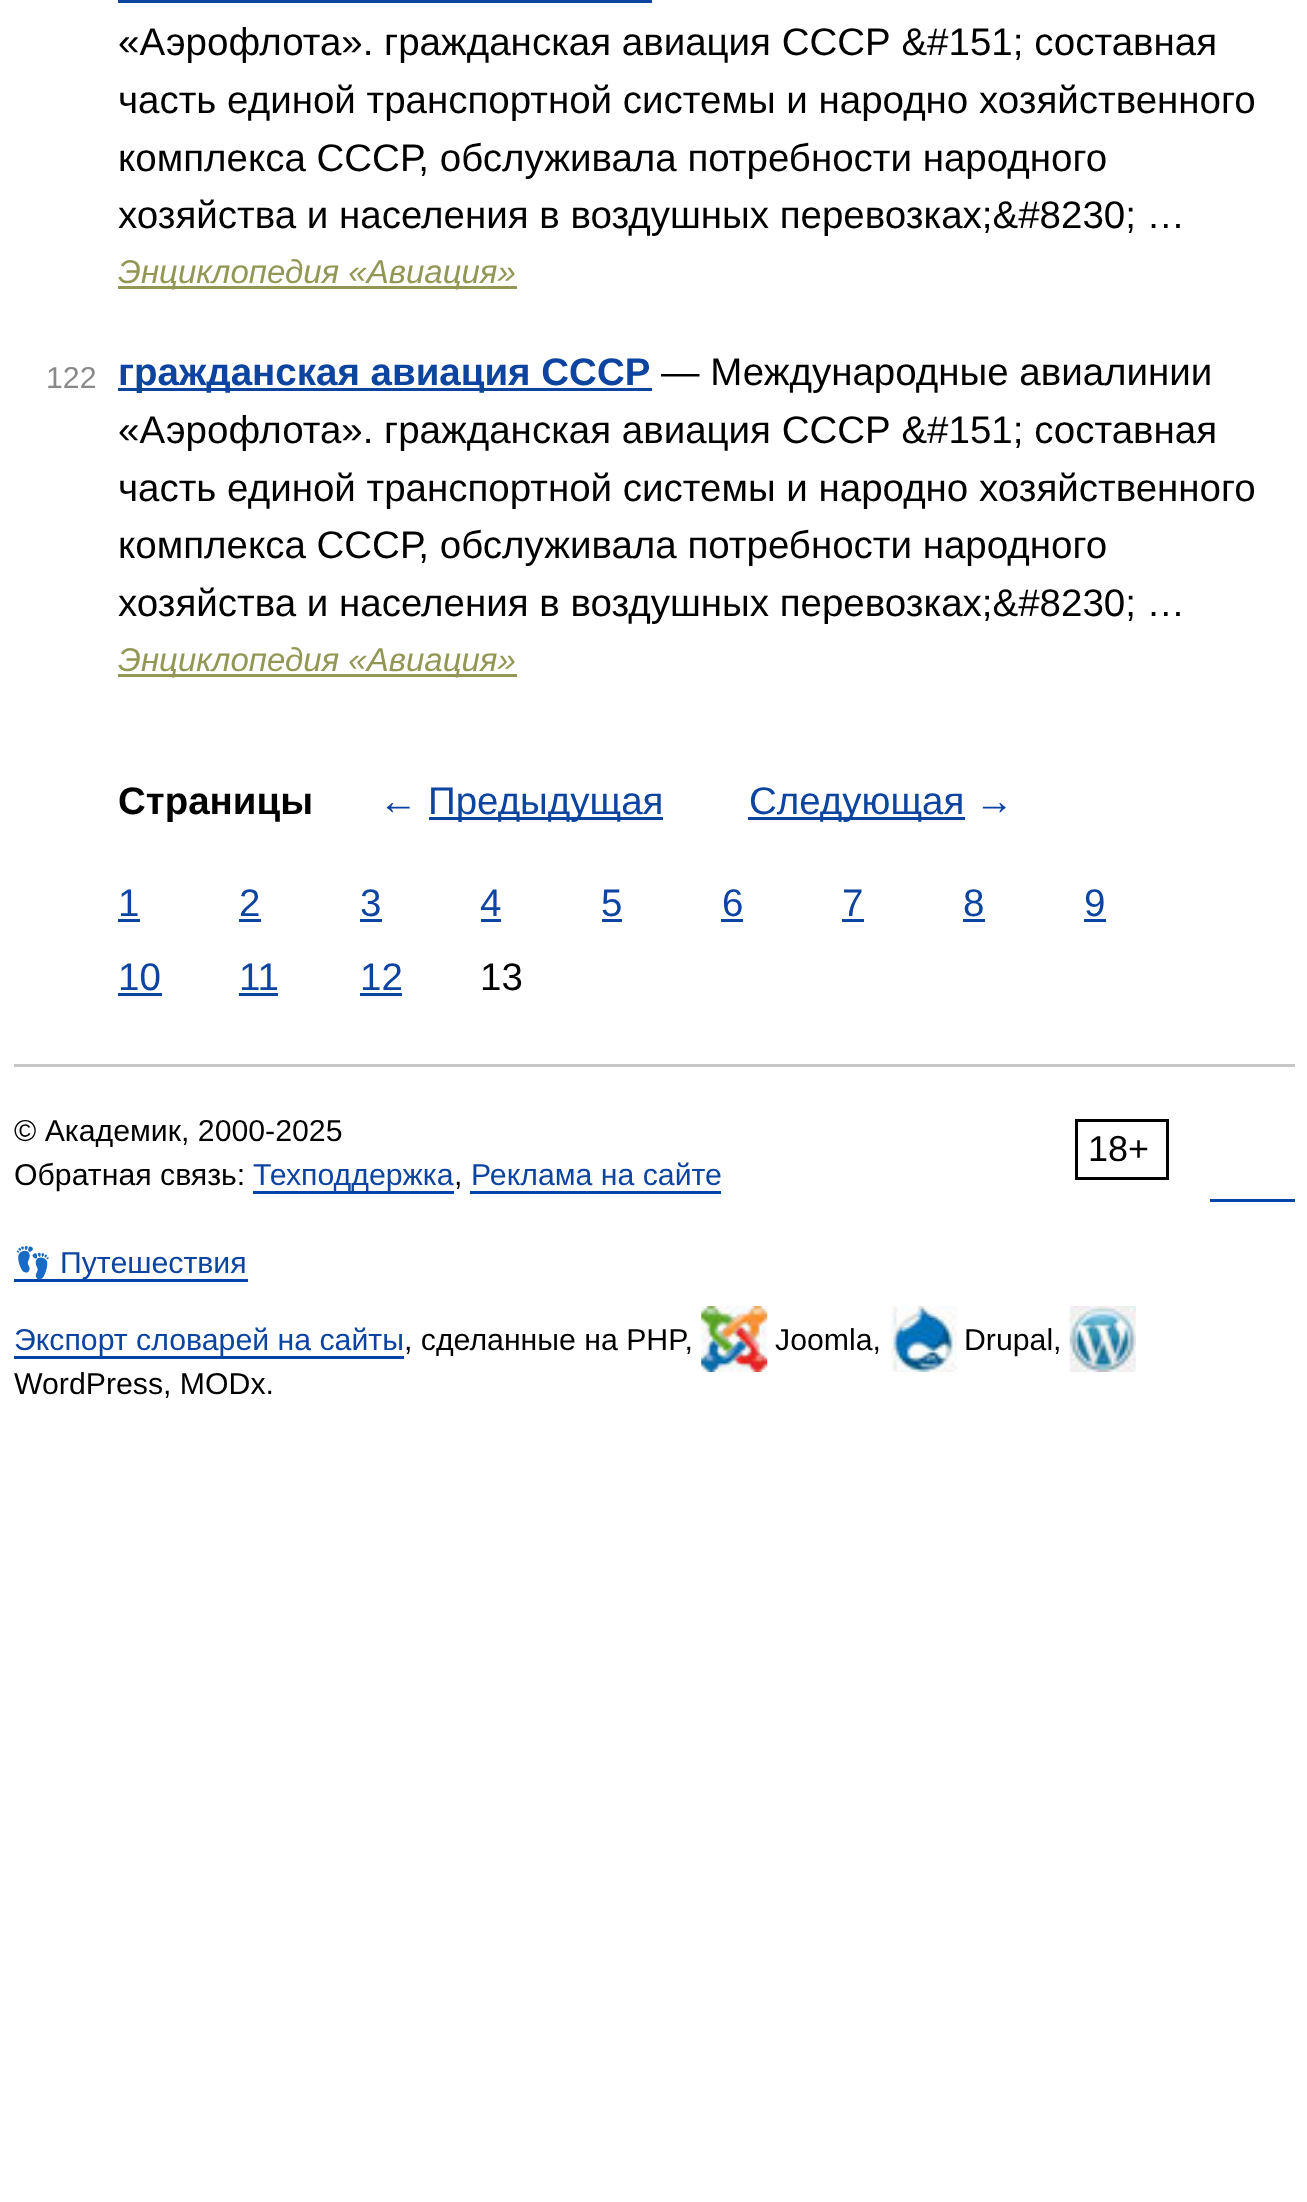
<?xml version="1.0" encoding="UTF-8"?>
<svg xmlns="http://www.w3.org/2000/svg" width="1307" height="2202">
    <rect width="100%" height="100%" fill="#FFFFFF"/>
    <rect x="118" y="0" width="534" height="3" fill="#0D44A0"/>
    <text font-family="Liberation Sans" font-size="38.5" fill="#000000">
        <tspan x="118" y="55">«Аэрофлота». гражданская авиация СССР &amp;#151; составная</tspan>
        <tspan x="118" y="113">часть единой транспортной системы и народно хозяйственного</tspan>
        <tspan x="118" y="171">комплекса СССР, обслуживала потребности народного</tspan>
        <tspan x="118" y="228">хозяйства и населения в воздушных перевозках;&amp;#8230; …</tspan>
    </text>
    <rect x="118" y="286" width="399" height="3" fill="#939756"/>
    <text x="118" y="283" font-family="Liberation Sans" font-size="33" font-style="italic" fill="#939756">Энциклопедия «Авиация»</text>
    <text x="46" y="388" font-family="Liberation Sans" font-size="30.25" fill="#898989">122</text>
    <rect x="118" y="388" width="534" height="3" fill="#0D44A0"/>
    <text x="118" y="385" font-family="Liberation Sans" font-size="38.5" font-weight="700" fill="#0D44A0">гражданская авиация СССР</text>
    <text x="661" y="385" font-family="Liberation Sans" font-size="38.5" fill="#000000">— Международные авиалинии</text>
    <text font-family="Liberation Sans" font-size="38.5" fill="#000000">
        <tspan x="118" y="443">«Аэрофлота». гражданская авиация СССР &amp;#151; составная</tspan>
        <tspan x="118" y="501">часть единой транспортной системы и народно хозяйственного</tspan>
        <tspan x="118" y="558">комплекса СССР, обслуживала потребности народного</tspan>
        <tspan x="118" y="616">хозяйства и населения в воздушных перевозках;&amp;#8230; …</tspan>
    </text>
    <rect x="118" y="674" width="399" height="3" fill="#939756"/>
    <text x="118" y="671" font-family="Liberation Sans" font-size="33" font-style="italic" fill="#939756">Энциклопедия «Авиация»</text>
    <text x="118" y="814" font-family="Liberation Sans" font-size="38.5" font-weight="700" fill="#000000">Страницы</text>
    <text x="379" y="814" font-family="Liberation Sans" font-size="38.5" fill="#0D44A0">←</text>
    <rect x="429" y="817" width="234" height="3" fill="#0D44A0"/>
    <text x="428" y="814" font-family="Liberation Sans" font-size="38.5" fill="#0D44A0">Предыдущая</text>
    <rect x="748" y="817" width="217" height="3" fill="#0D44A0"/>
    <text x="749" y="814" font-family="Liberation Sans" font-size="38.5" fill="#0D44A0">Следующая →</text>
    <text x="118" y="916" font-family="Liberation Sans" font-size="38.5" fill="#0D44A0">1</text>
    <rect x="118" y="919" width="22" height="3" fill="#0D44A0"/>
    <text x="239" y="916" font-family="Liberation Sans" font-size="38.5" fill="#0D44A0">2</text>
    <rect x="239" y="919" width="22" height="3" fill="#0D44A0"/>
    <text x="360" y="916" font-family="Liberation Sans" font-size="38.5" fill="#0D44A0">3</text>
    <rect x="360" y="919" width="22" height="3" fill="#0D44A0"/>
    <text x="480" y="916" font-family="Liberation Sans" font-size="38.5" fill="#0D44A0">4</text>
    <rect x="481" y="919" width="20" height="3" fill="#0D44A0"/>
    <text x="601" y="916" font-family="Liberation Sans" font-size="38.5" fill="#0D44A0">5</text>
    <rect x="602" y="919" width="20" height="3" fill="#0D44A0"/>
    <text x="722" y="916" font-family="Liberation Sans" font-size="38.5" fill="#0D44A0">6</text>
    <rect x="721" y="919" width="22" height="3" fill="#0D44A0"/>
    <text x="842" y="916" font-family="Liberation Sans" font-size="38.5" fill="#0D44A0">7</text>
    <rect x="842" y="919" width="22" height="3" fill="#0D44A0"/>
    <text x="963" y="916" font-family="Liberation Sans" font-size="38.5" fill="#0D44A0">8</text>
    <rect x="963" y="919" width="22" height="3" fill="#0D44A0"/>
    <text x="1084" y="916" font-family="Liberation Sans" font-size="38.5" fill="#0D44A0">9</text>
    <rect x="1084" y="919" width="22" height="3" fill="#0D44A0"/>
    <text x="118" y="990" font-family="Liberation Sans" font-size="38.5" fill="#0D44A0">10</text>
    <rect x="118" y="993" width="44" height="3" fill="#0D44A0"/>
    <text x="239" y="990" font-family="Liberation Sans" font-size="38.5" fill="#0D44A0">11</text>
    <rect x="239" y="993" width="39" height="3" fill="#0D44A0"/>
    <text x="360" y="990" font-family="Liberation Sans" font-size="38.5" fill="#0D44A0">12</text>
    <rect x="360" y="993" width="42" height="3" fill="#0D44A0"/>
    <text x="480" y="990" font-family="Liberation Sans" font-size="38.5" fill="#000000">13</text>
    <rect x="14" y="1064" width="1281" height="3" fill="#C7C7C7"/>
    <text x="14" y="1141" font-family="Liberation Sans" font-size="30.25" fill="#000000">© Академик, 2000-2025</text>
    <rect x="1076.5" y="1120.5" width="91" height="58" fill="none" stroke="#000000" stroke-width="3"/>
    <text x="1088" y="1161" font-family="Liberation Sans" font-size="36" fill="#000000">18+</text>
    <text x="14" y="1185" font-family="Liberation Sans" font-size="30.25" fill="#000000">Обратная связь:</text>
    <rect x="253" y="1191" width="201" height="3" fill="#0044AA"/>
    <text x="253" y="1185" font-family="Liberation Sans" font-size="30.25" fill="#0D44A0">Техподдержка</text>
    <text x="454" y="1185" font-family="Liberation Sans" font-size="30.25" fill="#000000">,</text>
    <text x="471" y="1185" font-family="Liberation Sans" font-size="30.25" fill="#0D44A0">Реклама на сайте</text>
    <rect x="470" y="1191" width="251" height="3" fill="#0044AA"/>
    <rect x="1210" y="1199" width="85" height="3" fill="#0044AA"/>
    <rect x="14" y="1279" width="234" height="3" fill="#0044AA"/>
    <text x="14" y="1273" font-family="Noto Color Emoji" font-size="30.25" fill="#0D44A0">👣</text>
    <text x="60" y="1273" font-family="Liberation Sans" font-size="30.25" fill="#0D44A0">Путешествия</text>
    <rect x="14" y="1356" width="390" height="3" fill="#0044AA"/>
    <text x="14" y="1350" font-family="Liberation Sans" font-size="30.25" fill="#0D44A0">Экспорт словарей на сайты</text>
    <text x="404" y="1350" font-family="Liberation Sans" font-size="30.25" fill="#000000">, сделанные на PHP,</text>
    <image x="701" y="1306" width="67" height="66" href="img_01.png"/>
    <text x="775" y="1350" font-family="Liberation Sans" font-size="30.25" fill="#000000">Joomla,</text>
    <image x="891" y="1306" width="66" height="66" href="img_02.png"/>
    <text x="964" y="1350" font-family="Liberation Sans" font-size="30.25" fill="#000000">Drupal,</text>
    <image x="1069" y="1306" width="67" height="66" href="img_03.png"/>
    <text x="14" y="1394" font-family="Liberation Sans" font-size="30.25" fill="#000000">WordPress, MODx.</text>
</svg>
